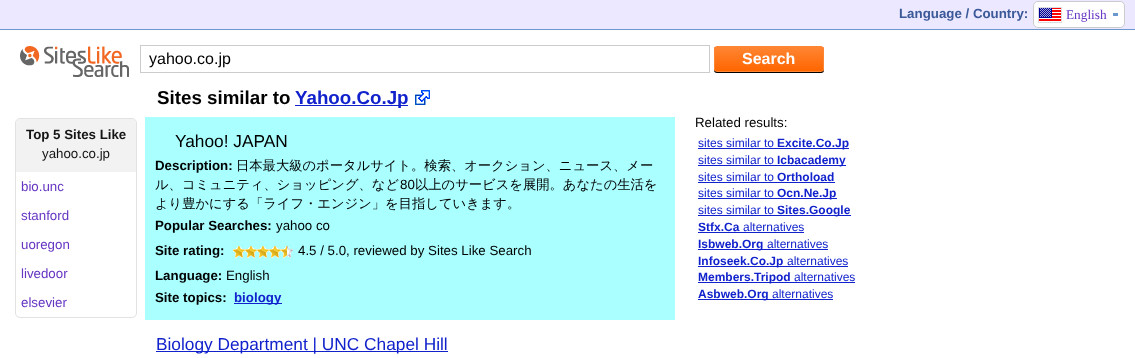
<?xml version="1.0" encoding="UTF-8"?>
<svg xmlns="http://www.w3.org/2000/svg" width="1135" height="358">
    <defs>
        <filter id="blur1" x="-50%" y="-200%" width="200%" height="500%"><feGaussianBlur stdDeviation="0.5"/></filter>
        <clipPath id="clip1"><rect x="714" y="46" width="110" height="26" rx="3"/></clipPath>
        <linearGradient id="g1" gradientUnits="userSpaceOnUse" x1="715" y1="47" x2="715" y2="71"><stop offset="0" stop-color="#FF8533"/><stop offset="1" stop-color="#FF6600"/></linearGradient>
    </defs>
    <rect width="100%" height="100%" fill="#FFFFFF"/>
    <rect x="0" y="0" width="1135" height="29" fill="#EBE8FF"/>
    <rect x="0" y="29" width="1135" height="1" fill="#6A98CD"/>
    <text x="899" y="18" font-family="Liberation Sans" font-size="13.3" font-weight="700" fill="#3B5998">Language / Country:</text>
    <rect x="1033.5" y="1.5" width="91" height="26" rx="4.5" fill="#FFFFFF" stroke="#CCCCCC"/>
    <rect x="1034" y="2" width="90" height="25" rx="5" fill="#FFFFFF"/>
    <image x="1039" y="8" width="22" height="14" href="img_01.png"/>
    <rect x="1038.5" y="7.5" width="23" height="15" fill="none" stroke="#DDDDDD"/>
    <text x="1066" y="19" font-family="Liberation Serif" font-size="13.3" fill="#6636C3">English</text>
    <rect x="1113" y="13" width="5" height="3" fill="#6A98CD"/>
    <image x="20" y="46" width="109" height="31" href="img_02.png"/>
    <rect x="140.5" y="45.5" width="569" height="27" fill="none" stroke="#CCCCCC"/>
    <text x="149" y="64" font-family="Liberation Sans" font-size="16" fill="#000000">yahoo.co.jp</text>
    <rect x="714" y="47" width="110" height="26" rx="3" fill="#000000" filter="url(#blur1)"/>
    <g clip-path="url(#clip1)">
        <rect x="714" y="47" width="110" height="24" fill="url(#g1)"/>
    </g>
    <rect x="714.5" y="46.5" width="109" height="25" rx="2.5" fill="none" stroke="#FF8533"/>
    <text x="742" y="64" font-family="Liberation Sans" font-size="16" font-weight="700" fill="#FFFFFF">Search</text>
    <text x="157" y="104" font-family="Liberation Sans" font-size="18.75" font-weight="700" fill="#000000">Sites similar to</text>
    <rect x="295" y="105" width="113" height="1" fill="#1122CC"/>
    <text x="295" y="104" font-family="Liberation Sans" font-size="18.75" font-weight="700" fill="#1122CC">Yahoo.Co.Jp</text>
    <image x="415" y="90" width="15" height="15" href="img_03.png"/>
    <rect x="15.5" y="118.5" width="121" height="199" rx="4.5" fill="none" stroke="#E2E2E2"/>
    <path d="M 20 119 H 132 C 134 119 136 121 136 123 V 172 H 16 V 123 C 16 121 18 119 20 119 Z" fill="#F2F2F2"/>
    <text x="26" y="139" font-family="Liberation Sans" font-size="13.3" font-weight="700" fill="#151515">Top 5 Sites Like</text>
    <text x="42" y="158" font-family="Liberation Sans" font-size="13.3" fill="#151515">yahoo.co.jp</text>
    <text x="21" y="191" font-family="Liberation Sans" font-size="13.3" fill="#6636C3">bio.unc</text>
    <text x="21" y="220" font-family="Liberation Sans" font-size="13.3" fill="#6636C3">stanford</text>
    <text x="21" y="249" font-family="Liberation Sans" font-size="13.3" fill="#6636C3">uoregon</text>
    <text x="21" y="278" font-family="Liberation Sans" font-size="13.3" fill="#6636C3">livedoor</text>
    <text x="21" y="307" font-family="Liberation Sans" font-size="13.3" fill="#6636C3">elsevier</text>
    <rect x="145" y="117" width="530" height="203" fill="#AAFFFF"/>
    <text x="175" y="147" font-family="Liberation Sans" font-size="17.3" fill="#000000">Yahoo! JAPAN</text>
    <text x="155" y="170" font-family="Liberation Sans" font-size="13.3" font-weight="700" fill="#000000">Description:</text>
    <text x="236" y="170" font-family="WenQuanYi Zen Hei" font-size="13.3" font-weight="500" fill="#000000">日本最大級のポータルサイト。検索、オークション、ニュース、メー</text>
    <text x="155" y="189" font-family="WenQuanYi Zen Hei" font-size="13.3" font-weight="500" fill="#000000">ル、コミュニティ、ショッピング、など</text>
    <text x="400" y="189" font-family="Liberation Sans" font-size="13.3" fill="#000000">80</text>
    <text x="415" y="189" font-family="WenQuanYi Zen Hei" font-size="13.3" font-weight="500" fill="#000000">以上のサービスを展開。あなたの生活を</text>
    <text x="155" y="208" font-family="WenQuanYi Zen Hei" font-size="13.3" font-weight="500" fill="#000000">より豊かにする「ライフ・エンジン」を目指していきます。</text>
    <text x="155" y="230" font-family="Liberation Sans" font-size="13.3" font-weight="700" fill="#000000">Popular Searches:</text>
    <text x="276" y="230" font-family="Liberation Sans" font-size="13.3" fill="#000000">yahoo co</text>
    <text x="155" y="255" font-family="Liberation Sans" font-size="13.3" font-weight="700" fill="#000000">Site rating:</text>
    <image x="287" y="246" width="6" height="12" href="img_04.png"/>
    <image x="233" y="246" width="54" height="12" href="img_05.png"/>
    <text x="298" y="255" font-family="Liberation Sans" font-size="13.3" fill="#000000">4.5 / 5.0, reviewed by Sites Like Search</text>
    <text x="155" y="280" font-family="Liberation Sans" font-size="13.3" font-weight="700" fill="#000000">Language:</text>
    <text x="226" y="280" font-family="Liberation Sans" font-size="13.3" fill="#000000">English</text>
    <text x="155" y="302" font-family="Liberation Sans" font-size="13.3" font-weight="700" fill="#000000">Site topics:</text>
    <rect x="234" y="303" width="48" height="1" fill="#1122CC"/>
    <text x="234" y="302" font-family="Liberation Sans" font-size="13.3" font-weight="700" fill="#1122CC">biology</text>
    <rect x="156" y="351" width="292" height="1" fill="#1122CC"/>
    <text x="156" y="350" font-family="Liberation Sans" font-size="17.3" fill="#1122CC">Biology Department | UNC Chapel Hill</text>
    <text x="695" y="127" font-family="Liberation Sans" font-size="13.3" fill="#000000">Related results:</text>
    <text x="698" y="147" font-family="Liberation Sans" font-size="12" fill="#1122CC">sites similar to</text>
    <rect x="698" y="148" width="151" height="1" fill="#1122CC"/>
    <text x="777" y="147" font-family="Liberation Sans" font-size="12" font-weight="700" fill="#1122CC">Excite.Co.Jp</text>
    <text x="698" y="164" font-family="Liberation Sans" font-size="12" fill="#1122CC">sites similar to</text>
    <rect x="698" y="165" width="148" height="1" fill="#1122CC"/>
    <text x="777" y="164" font-family="Liberation Sans" font-size="12" font-weight="700" fill="#1122CC">Icbacademy</text>
    <text x="698" y="181" font-family="Liberation Sans" font-size="12" fill="#1122CC">sites similar to</text>
    <rect x="698" y="182" width="137" height="1" fill="#1122CC"/>
    <text x="777" y="181" font-family="Liberation Sans" font-size="12" font-weight="700" fill="#1122CC">Orthoload</text>
    <text x="698" y="197" font-family="Liberation Sans" font-size="12" fill="#1122CC">sites similar to</text>
    <rect x="698" y="198" width="139" height="1" fill="#1122CC"/>
    <text x="777" y="197" font-family="Liberation Sans" font-size="12" font-weight="700" fill="#1122CC">Ocn.Ne.Jp</text>
    <text x="698" y="214" font-family="Liberation Sans" font-size="12" fill="#1122CC">sites similar to</text>
    <rect x="698" y="215" width="153" height="1" fill="#1122CC"/>
    <text x="777" y="214" font-family="Liberation Sans" font-size="12" font-weight="700" fill="#1122CC">Sites.Google</text>
    <text x="698" y="231" font-family="Liberation Sans" font-size="12" font-weight="700" fill="#1122CC">Stfx.Ca</text>
    <rect x="698" y="232" width="106" height="1" fill="#1122CC"/>
    <text x="743" y="231" font-family="Liberation Sans" font-size="12" fill="#1122CC">alternatives</text>
    <rect x="698" y="249" width="130" height="1" fill="#1122CC"/>
    <text x="698" y="248" font-family="Liberation Sans" font-size="12" font-weight="700" fill="#1122CC">Isbweb.Org</text>
    <text x="767" y="248" font-family="Liberation Sans" font-size="12" fill="#1122CC">alternatives</text>
    <rect x="698" y="266" width="150" height="1" fill="#1122CC"/>
    <text x="698" y="265" font-family="Liberation Sans" font-size="12" font-weight="700" fill="#1122CC">Infoseek.Co.Jp</text>
    <text x="787" y="265" font-family="Liberation Sans" font-size="12" fill="#1122CC">alternatives</text>
    <rect x="698" y="282" width="157" height="1" fill="#1122CC"/>
    <text x="698" y="281" font-family="Liberation Sans" font-size="12" font-weight="700" fill="#1122CC">Members.Tripod</text>
    <text x="794" y="281" font-family="Liberation Sans" font-size="12" fill="#1122CC">alternatives</text>
    <rect x="698" y="299" width="135" height="1" fill="#1122CC"/>
    <text x="698" y="298" font-family="Liberation Sans" font-size="12" font-weight="700" fill="#1122CC">Asbweb.Org</text>
    <text x="772" y="298" font-family="Liberation Sans" font-size="12" fill="#1122CC">alternatives</text>
</svg>
